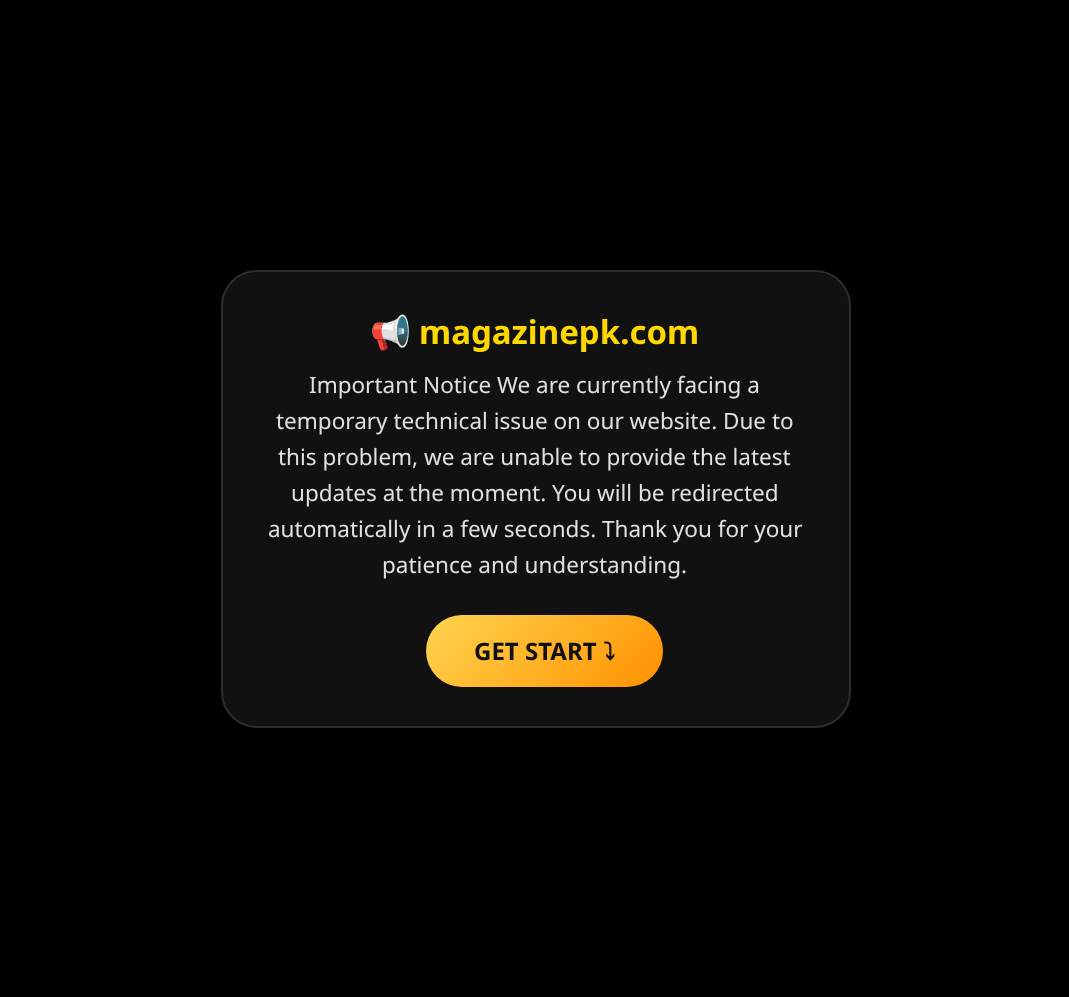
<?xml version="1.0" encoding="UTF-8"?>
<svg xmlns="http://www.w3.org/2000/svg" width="1069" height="997">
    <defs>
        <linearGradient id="g1" gradientUnits="userSpaceOnUse" x1="467" y1="574" x2="622" y2="728"><stop offset="0" stop-color="#FFD54F"/><stop offset="1" stop-color="#FF9100"/></linearGradient>
    </defs>
    <rect width="100%" height="100%" fill="#000000"/>
    <rect x="221" y="270" width="630" height="458" rx="36" fill="#111111"/>
    <rect x="222" y="271" width="628" height="456" rx="35" fill="none" stroke="#FFFFFF" stroke-opacity="0.12" stroke-width="2"/>
    <text x="370" y="344" font-family="Noto Color Emoji" font-size="33" font-weight="700" fill="#FFD700">📢</text>
    <text x="419" y="344" font-family="Noto Sans" font-size="33" font-weight="700" fill="#FFD700">magazinepk.com</text>
    <text x="309" y="393" font-family="Noto Sans" font-size="22.5" fill="#E0E0E0">Important Notice We are currently facing a</text>
    <text x="276" y="429" font-family="Noto Sans" font-size="22.5" fill="#E0E0E0">temporary technical issue on our website. Due to</text>
    <text x="278" y="465" font-family="Noto Sans" font-size="22.5" fill="#E0E0E0">this problem, we are unable to provide the latest</text>
    <text x="291" y="501" font-family="Noto Sans" font-size="22.5" fill="#E0E0E0">updates at the moment. You will be redirected</text>
    <text x="268" y="537" font-family="Noto Sans" font-size="22.5" fill="#E0E0E0">automatically in a few seconds. Thank you for your</text>
    <text x="382" y="573" font-family="Noto Sans" font-size="22.5" fill="#E0E0E0">patience and understanding.</text>
    <rect x="426" y="615" width="237" height="72" rx="36" fill="url(#g1)"/>
    <text x="474" y="660" font-family="Noto Sans" font-size="24" font-weight="700" fill="#111111">GET START</text>
    <text x="603" y="660" font-family="IPAGothic" font-size="24" font-weight="700" fill="#111111">⤵</text>
</svg>
